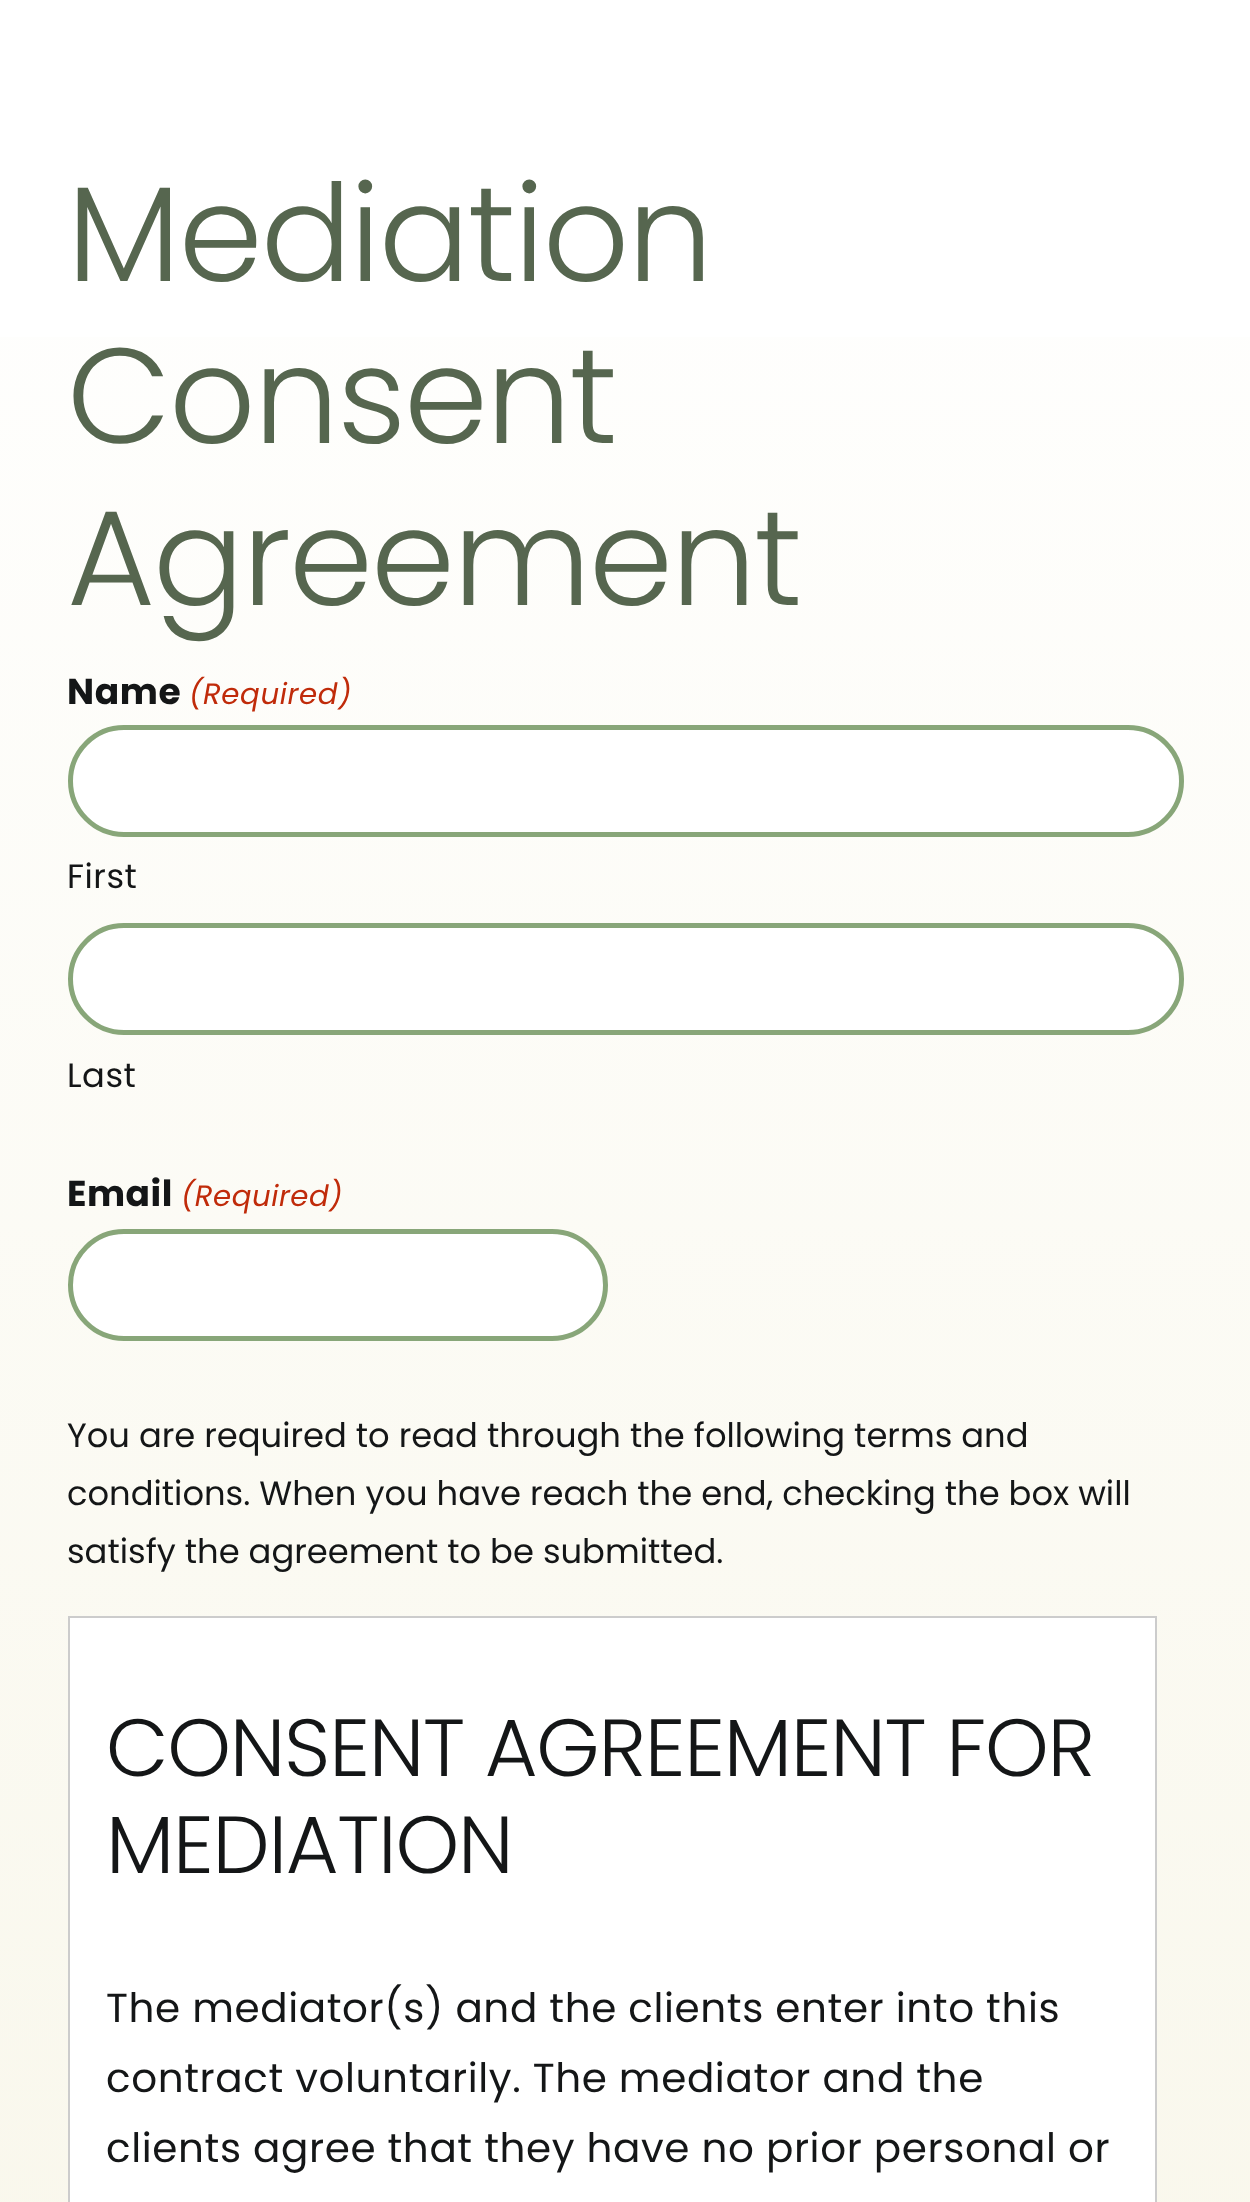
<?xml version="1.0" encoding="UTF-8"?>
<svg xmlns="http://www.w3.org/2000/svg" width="1250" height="2202">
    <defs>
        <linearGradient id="g1" gradientUnits="userSpaceOnUse" x1="625" y1="41" x2="626" y2="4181"><stop offset="0" stop-color="#FFFFFF"/><stop offset="1" stop-color="#F4F1DC"/></linearGradient>
    </defs>
    <rect width="100%" height="100%" fill="#FFFFFF"/>
    <rect x="0" y="337" width="1250" height="1865" fill="url(#g1)"/>
    <text font-family="Poppins" font-size="135" font-weight="300" letter-spacing="-2" fill="#56664F">
        <tspan x="67" y="281">Mediation</tspan>
        <tspan x="67" y="443">Consent</tspan>
        <tspan x="67" y="605">Agreement</tspan>
    </text>
    <text x="67" y="704" font-family="Poppins" font-size="36" font-weight="700" letter-spacing="0.6" fill="#141617">Name</text>
    <text x="189" y="704" font-family="Poppins" font-size="29.25" font-style="italic" letter-spacing="0.6" fill="#C02B0A">(Required)</text>
    <rect x="70.5" y="727.5" width="1111" height="107" rx="53.5" fill="#FFFFFF" stroke="#88A679" stroke-width="5"/>
    <text x="67" y="888" font-family="Poppins" font-size="33.75" letter-spacing="0.5" fill="#141617">First</text>
    <rect x="70.5" y="925.5" width="1111" height="107" rx="53.5" fill="#FFFFFF" stroke="#88A679" stroke-width="5"/>
    <text x="67" y="1087" font-family="Poppins" font-size="33.75" letter-spacing="0.5" fill="#141617">Last</text>
    <text x="67" y="1206" font-family="Poppins" font-size="36" font-weight="700" letter-spacing="0.5" fill="#141617">Email</text>
    <text x="181" y="1206" font-family="Poppins" font-size="29.25" font-style="italic" letter-spacing="0.5" fill="#C02B0A">(Required)</text>
    <rect x="70.5" y="1231.5" width="535" height="107" rx="53.5" fill="#FFFFFF" stroke="#88A679" stroke-width="5"/>
    <text font-family="Poppins" font-size="33.75" fill="#141617">
        <tspan x="67" y="1447">You are required to read through the following terms and</tspan>
        <tspan x="67" y="1505">conditions. When you have reach the end, checking the box will</tspan>
        <tspan x="67" y="1563">satisfy the agreement to be submitted.</tspan>
    </text>
    <rect x="69" y="1617" width="1087" height="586" fill="#FFFFFF" stroke="#CCCCCC" stroke-width="2"/>
    <text font-family="Poppins" font-size="81" font-weight="300" letter-spacing="-1.25" fill="#141617">
        <tspan x="106" y="1776">CONSENT AGREEMENT FOR</tspan>
        <tspan x="106" y="1873">MEDIATION</tspan>
    </text>
    <text font-family="Poppins" font-size="40.5" letter-spacing="0.6" fill="#141617">
        <tspan x="106" y="2022">The mediator(s) and the clients enter into this</tspan>
        <tspan x="106" y="2092">contract voluntarily. The mediator and the</tspan>
        <tspan x="106" y="2162">clients agree that they have no prior personal or</tspan>
    </text>
</svg>
